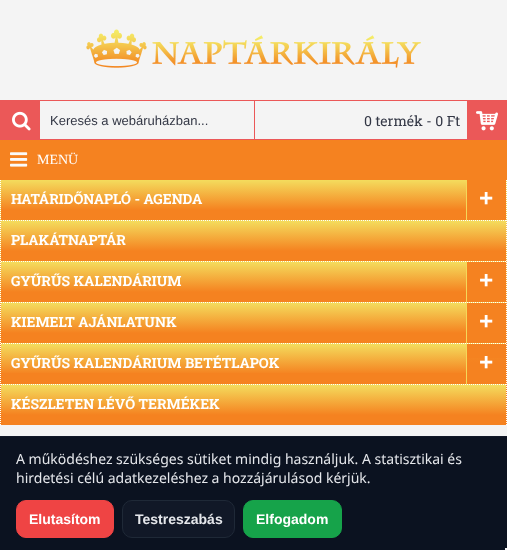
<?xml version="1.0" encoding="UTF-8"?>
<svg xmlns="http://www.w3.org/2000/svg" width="507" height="550">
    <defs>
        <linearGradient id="g1" gradientUnits="userSpaceOnUse" x1="253" y1="180" x2="254" y2="425"><stop offset="0" stop-color="#F4DC5D"/><stop offset="0.75" stop-color="#F58220"/></linearGradient>
        <linearGradient id="g2" gradientUnits="userSpaceOnUse" x1="254" y1="180" x2="254" y2="220"><stop offset="0" stop-color="#F4DC5D"/><stop offset="0.75" stop-color="#F58220"/></linearGradient>
        <linearGradient id="g3" gradientUnits="userSpaceOnUse" x1="254" y1="220" x2="254" y2="260"><stop offset="0" stop-color="#F4DC5D"/><stop offset="0.75" stop-color="#F58220"/></linearGradient>
        <linearGradient id="g4" gradientUnits="userSpaceOnUse" x1="254" y1="221" x2="254" y2="261"><stop offset="0" stop-color="#F4DC5D"/><stop offset="0.75" stop-color="#F58220"/></linearGradient>
        <linearGradient id="g5" gradientUnits="userSpaceOnUse" x1="254" y1="261" x2="254" y2="301"><stop offset="0" stop-color="#F4DC5D"/><stop offset="0.75" stop-color="#F58220"/></linearGradient>
        <linearGradient id="g6" gradientUnits="userSpaceOnUse" x1="254" y1="262" x2="254" y2="302"><stop offset="0" stop-color="#F4DC5D"/><stop offset="0.75" stop-color="#F58220"/></linearGradient>
        <linearGradient id="g7" gradientUnits="userSpaceOnUse" x1="254" y1="302" x2="254" y2="342"><stop offset="0" stop-color="#F4DC5D"/><stop offset="0.75" stop-color="#F58220"/></linearGradient>
        <linearGradient id="g8" gradientUnits="userSpaceOnUse" x1="254" y1="303" x2="254" y2="343"><stop offset="0" stop-color="#F4DC5D"/><stop offset="0.75" stop-color="#F58220"/></linearGradient>
        <linearGradient id="g9" gradientUnits="userSpaceOnUse" x1="254" y1="343" x2="254" y2="383"><stop offset="0" stop-color="#F4DC5D"/><stop offset="0.75" stop-color="#F58220"/></linearGradient>
        <linearGradient id="g10" gradientUnits="userSpaceOnUse" x1="254" y1="344" x2="254" y2="384"><stop offset="0" stop-color="#F4DC5D"/><stop offset="0.75" stop-color="#F58220"/></linearGradient>
        <linearGradient id="g11" gradientUnits="userSpaceOnUse" x1="254" y1="384" x2="254" y2="424"><stop offset="0" stop-color="#F4DC5D"/><stop offset="0.75" stop-color="#F58220"/></linearGradient>
        <linearGradient id="g12" gradientUnits="userSpaceOnUse" x1="254" y1="385" x2="254" y2="425"><stop offset="0" stop-color="#F4DC5D"/><stop offset="0.75" stop-color="#F58220"/></linearGradient>
    </defs>
    <rect width="100%" height="100%" fill="#F4F4F4"/>
    <image x="86" y="29" width="335" height="39" href="img_01.png"/>
    <rect x="0" y="100" width="40" height="40" fill="#EB5858"/>
    <image x="12" y="111" width="19" height="20" href="img_02.png"/>
    <rect x="40" y="100" width="467" height="1" fill="#EB5858"/>
    <rect x="40" y="139" width="427" height="1" fill="#EB5858"/>
    <text x="50" y="125" font-family="Liberation Sans" font-size="13" fill="#333745">Keresés a webáruházban...</text>
    <rect x="254" y="100" width="1" height="40" fill="#EB5858"/>
    <text x="364" y="126" font-family="Roboto Slab" font-size="14" fill="#333745">0 termék - 0 Ft</text>
    <rect x="467" y="101" width="40" height="39" fill="#EB5858"/>
    <image x="476" y="111" width="22" height="20" href="img_03.png"/>
    <rect x="0" y="140" width="507" height="40" fill="#F58220"/>
    <image x="10" y="152" width="18" height="15" href="img_04.png"/>
    <text x="37" y="164" font-family="Liberation Serif" font-size="14" fill="#FFFFFF">MENÜ</text>
    <rect x="0" y="181" width="507" height="243" fill="url(#g1)"/>
    <path d="M 506.5 180 V 425" fill="none" stroke="#FFFFFF" stroke-dasharray="1 1"/>
    <path d="M 0.5 180 V 425" fill="none" stroke="#FFFFFF" stroke-dasharray="1 1"/>
    <rect x="1" y="180" width="465" height="40" fill="url(#g2)"/>
    <rect x="1" y="220" width="505" height="1" fill="url(#g3)"/>
    <path d="M 1 220.5 H 506" fill="none" stroke="#FFFFFF" stroke-dasharray="1 1"/>
    <text x="11" y="204" font-family="Roboto Slab" font-size="14" font-weight="700" fill="#FFFFFF">HATÁRIDŐNAPLÓ - AGENDA</text>
    <rect x="467" y="180" width="39" height="40" fill="#F58220"/>
    <rect x="466" y="180" width="1" height="40" fill="#F4D75A"/>
    <text x="479" y="207" font-family="Noto Sans" font-size="25" font-weight="700" fill="#FFFFFF">+</text>
    <rect x="1" y="221" width="505" height="40" fill="url(#g4)"/>
    <rect x="1" y="261" width="505" height="1" fill="url(#g5)"/>
    <path d="M 1 261.5 H 506" fill="none" stroke="#FFFFFF" stroke-dasharray="1 1"/>
    <text x="11" y="245" font-family="Roboto Slab" font-size="14" font-weight="700" fill="#FFFFFF">PLAKÁTNAPTÁR</text>
    <rect x="1" y="262" width="465" height="40" fill="url(#g6)"/>
    <rect x="1" y="302" width="505" height="1" fill="url(#g7)"/>
    <path d="M 1 302.5 H 506" fill="none" stroke="#FFFFFF" stroke-dasharray="1 1"/>
    <text x="11" y="286" font-family="Roboto Slab" font-size="14" font-weight="700" fill="#FFFFFF">GYŰRŰS KALENDÁRIUM</text>
    <rect x="467" y="262" width="39" height="40" fill="#F58220"/>
    <rect x="466" y="262" width="1" height="40" fill="#F4D75A"/>
    <text x="479" y="289" font-family="Noto Sans" font-size="25" font-weight="700" fill="#FFFFFF">+</text>
    <rect x="1" y="303" width="465" height="40" fill="url(#g8)"/>
    <rect x="1" y="343" width="505" height="1" fill="url(#g9)"/>
    <path d="M 1 343.5 H 506" fill="none" stroke="#FFFFFF" stroke-dasharray="1 1"/>
    <text x="11" y="327" font-family="Roboto Slab" font-size="14" font-weight="700" fill="#FFFFFF">KIEMELT AJÁNLATUNK</text>
    <rect x="467" y="303" width="39" height="40" fill="#F58220"/>
    <rect x="466" y="303" width="1" height="40" fill="#F4D75A"/>
    <text x="479" y="330" font-family="Noto Sans" font-size="25" font-weight="700" fill="#FFFFFF">+</text>
    <rect x="1" y="344" width="465" height="29" fill="url(#g10)"/>
    <rect x="1" y="384" width="505" height="1" fill="url(#g11)"/>
    <path d="M 1 384.5 H 506" fill="none" stroke="#FFFFFF" stroke-dasharray="1 1"/>
    <text x="11" y="368" font-family="Roboto Slab" font-size="14" font-weight="700" fill="#FFFFFF">GYŰRŰS KALENDÁRIUM BETÉTLAPOK</text>
    <rect x="467" y="344" width="39" height="14" fill="#F58220"/>
    <rect x="466" y="344" width="1" height="40" fill="#F4D75A"/>
    <text x="479" y="371" font-family="Noto Sans" font-size="25" font-weight="700" fill="#FFFFFF">+</text>
    <rect x="1" y="385" width="505" height="40" fill="url(#g12)"/>
    <text x="11" y="409" font-family="Roboto Slab" font-size="14" font-weight="700" fill="#FFFFFF">KÉSZLETEN LÉVŐ TERMÉKEK</text>
    <rect x="0" y="437" width="507" height="113" fill="#0B1220"/>
    <rect x="0" y="436" width="507" height="1" fill="#111827"/>
    <text font-family="Noto Sans" font-size="14" fill="#E5E7EB">
        <tspan x="16" y="464">A működéshez szükséges sütiket mindig használjuk. A statisztikai és</tspan>
        <tspan x="16" y="483">hirdetési célú adatkezeléshez a hozzájárulásod kérjük.</tspan>
    </text>
    <rect x="16.5" y="500.5" width="97" height="37" rx="9.5" fill="#EF4444" stroke="#EF4444"/>
    <text x="29" y="524" font-family="Liberation Sans" font-size="14" font-weight="700" fill="#FFFFFF">Elutasítom</text>
    <rect x="122.5" y="500.5" width="112" height="37" rx="9.5" fill="#111827" stroke="#1F2937"/>
    <text x="135" y="524" font-family="Liberation Sans" font-size="14" font-weight="700" fill="#E5E7EB">Testreszabás</text>
    <rect x="243.5" y="500.5" width="98" height="37" rx="9.5" fill="#16A34A" stroke="#16A34A"/>
    <text x="256" y="524" font-family="Liberation Sans" font-size="14" font-weight="700" fill="#FFFFFF">Elfogadom</text>
    <rect x="505" y="548" width="2" height="2" fill="#F5F5F5"/>
</svg>
